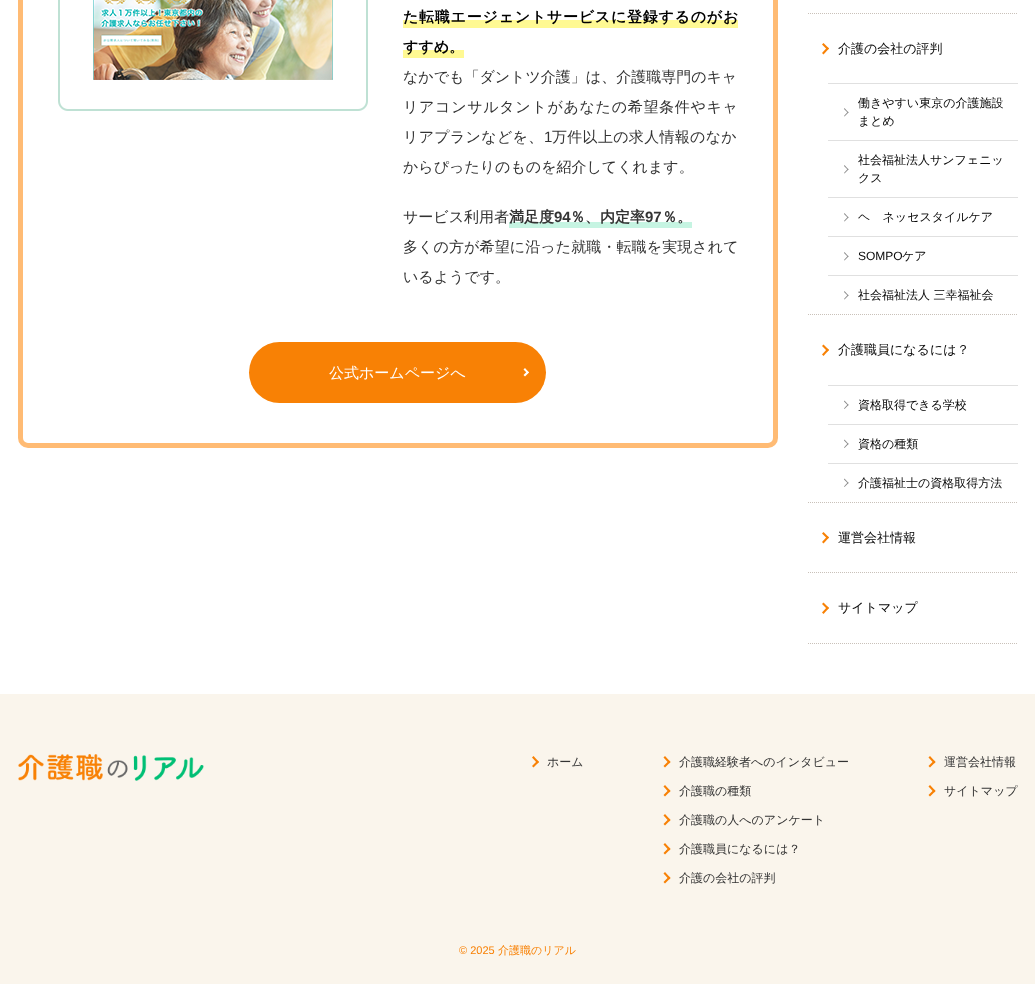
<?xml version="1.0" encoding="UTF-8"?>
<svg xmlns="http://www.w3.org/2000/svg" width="1035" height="984">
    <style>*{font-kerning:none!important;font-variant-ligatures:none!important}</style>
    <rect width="100%" height="100%" fill="#FFFFFF"/>
    <rect x="20.5" y="-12.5" width="755" height="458" rx="7.5" fill="none" stroke="#FFBB74" stroke-width="5"/>
    <image x="58" y="0" width="310" height="111" href="img_01.png"/>
    <rect x="403" y="20" width="335" height="8" fill="#FFF993"/>
    <text x="403" y="22" font-family="WenQuanYi Zen Hei" font-size="15" font-weight="700" letter-spacing="0.75" fill="#000000">た転職エージェントサービスに登録するのがお</text>
    <rect x="403" y="50" width="61" height="8" fill="#FFF993"/>
    <text x="403" y="52" font-family="WenQuanYi Zen Hei" font-size="15" font-weight="700" fill="#000000">すすめ。</text>
    <text x="403" y="82" font-family="WenQuanYi Zen Hei" font-size="15" font-weight="500" fill="#333333">なかでも「ダントツ介護」は、介護職専門のキャ</text>
    <text x="403" y="112" font-family="WenQuanYi Zen Hei" font-size="15" font-weight="500" letter-spacing="0.7" fill="#333333">リアコンサルタントがあなたの希望条件やキャ</text>
    <text x="403" y="142" font-family="WenQuanYi Zen Hei" font-size="15" font-weight="500" letter-spacing="0.3" fill="#333333">リアプランなどを、</text>
    <text x="544" y="142" font-family="Liberation Sans" font-size="15" letter-spacing="0.3" fill="#333333">1</text>
    <text x="552" y="142" font-family="WenQuanYi Zen Hei" font-size="15" font-weight="500" letter-spacing="0.3" fill="#333333">万件以上の求人情報のなか</text>
    <text x="403" y="172" font-family="WenQuanYi Zen Hei" font-size="15" font-weight="500" fill="#333333">からぴったりのものを紹介してくれます。</text>
    <text x="403" y="222" font-family="WenQuanYi Zen Hei" font-size="15" font-weight="500" fill="#333333">サービス利用者</text>
    <rect x="509" y="222" width="183" height="6" fill="#C6F4E2"/>
    <text x="509" y="222" font-family="WenQuanYi Zen Hei" font-size="15" font-weight="700" fill="#333333">満足度</text>
    <text x="554" y="222" font-family="Liberation Sans" font-size="15" font-weight="700" fill="#333333">94</text>
    <text x="570" y="222" font-family="WenQuanYi Zen Hei" font-size="15" font-weight="700" fill="#333333">％、内定率</text>
    <text x="645" y="222" font-family="Liberation Sans" font-size="15" font-weight="700" fill="#333333">97</text>
    <text x="662" y="222" font-family="WenQuanYi Zen Hei" font-size="15" font-weight="700" fill="#333333">％。</text>
    <text x="403" y="252" font-family="WenQuanYi Zen Hei" font-size="15" font-weight="500" letter-spacing="0.1" fill="#333333">多くの方が希望に沿った就職・転職を実現されて</text>
    <text x="403" y="282" font-family="WenQuanYi Zen Hei" font-size="15" font-weight="500" fill="#333333">いるようです。</text>
    <rect x="249" y="342" width="297" height="61" rx="30.5" fill="#F88105"/>
    <text x="329" y="378" font-family="WenQuanYi Zen Hei" font-size="15" font-weight="500" fill="#FFFFFF">公式ホームページへ</text>
    <path d="M 525 368 L 529 372.5 L 527.5 373.5 L 523.5 369.5 Z" fill="#FFFFFF"/>
    <path d="M 527.5 371 L 529 372.5 L 525 376.5 L 523.5 375 Z" fill="#FFFFFF"/>
    <path d="M 808 13.5 H 1018" fill="none" stroke="#C9C1B9" stroke-dasharray="1 1"/>
    <path d="M 808 314.5 H 1018" fill="none" stroke="#C9C1B9" stroke-dasharray="1 1"/>
    <path d="M 823.5 43 L 829 48.5 L 827.5 50 L 822 44.5 Z" fill="#F88105"/>
    <path d="M 827.5 47 L 829 48.5 L 823.5 54.5 L 822 53 Z" fill="#F88105"/>
    <text x="838" y="53" font-family="WenQuanYi Zen Hei" font-size="13" font-weight="500" fill="#080808">介護の会社の評判</text>
    <rect x="828" y="83" width="190" height="1" fill="#E0E0E0"/>
    <text x="858" y="107" font-family="WenQuanYi Zen Hei" font-size="12" font-weight="500" fill="#080808">働きやすい東京の介護施設</text>
    <path d="M 844.5 108 L 848.5 112.5 L 848 113 L 844 109 Z" fill="#888888"/>
    <path d="M 848 111.5 L 848.5 112.5 L 844.5 116.5 L 844 116 Z" fill="#888888"/>
    <text x="858" y="125" font-family="WenQuanYi Zen Hei" font-size="12" font-weight="500" fill="#080808">まとめ</text>
    <rect x="828" y="140" width="190" height="1" fill="#E0E0E0"/>
    <text x="858" y="164" font-family="WenQuanYi Zen Hei" font-size="12" font-weight="500" fill="#080808">社会福祉法人サンフェニッ</text>
    <path d="M 844.5 165 L 848.5 169.5 L 848 170 L 844 166 Z" fill="#888888"/>
    <path d="M 848 168.5 L 848.5 169.5 L 844.5 173.5 L 844 173 Z" fill="#888888"/>
    <text x="858" y="182" font-family="WenQuanYi Zen Hei" font-size="12" font-weight="500" fill="#080808">クス</text>
    <rect x="828" y="197" width="190" height="1" fill="#E0E0E0"/>
    <path d="M 844.5 213 L 848.5 217.5 L 848 218 L 844 214 Z" fill="#888888"/>
    <path d="M 848 216.5 L 848.5 217.5 L 844.5 221.5 L 844 221 Z" fill="#888888"/>
    <text x="858" y="221" font-family="WenQuanYi Zen Hei" font-size="12" font-weight="500" fill="#080808">ベネッセスタイルケア</text>
    <rect x="828" y="236" width="190" height="1" fill="#E0E0E0"/>
    <path d="M 844.5 252 L 848.5 256.5 L 848 257 L 844 253 Z" fill="#888888"/>
    <path d="M 848 255.5 L 848.5 256.5 L 844.5 260.5 L 844 260 Z" fill="#888888"/>
    <text x="858" y="260" font-family="Liberation Sans" font-size="12" fill="#080808">SOMPO</text>
    <text x="902" y="260" font-family="WenQuanYi Zen Hei" font-size="12" font-weight="500" fill="#080808">ケア</text>
    <rect x="828" y="275" width="190" height="1" fill="#E0E0E0"/>
    <path d="M 844.5 291 L 848.5 295.5 L 848 296 L 844 292 Z" fill="#888888"/>
    <path d="M 848 294.5 L 848.5 295.5 L 844.5 299.5 L 844 299 Z" fill="#888888"/>
    <text x="858" y="299" font-family="WenQuanYi Zen Hei" font-size="12" font-weight="500" fill="#080808">社会福祉法人 三幸福祉会</text>
    <path d="M 808 502.5 H 1018" fill="none" stroke="#C9C1B9" stroke-dasharray="1 1"/>
    <path d="M 823.5 344.5 L 829 350 L 827.5 351.5 L 822 346 Z" fill="#F88105"/>
    <path d="M 827.5 348.5 L 829 350 L 823.5 356 L 822 354.5 Z" fill="#F88105"/>
    <text x="838" y="354" font-family="WenQuanYi Zen Hei" font-size="13" font-weight="500" fill="#080808">介護職員になるには？</text>
    <rect x="828" y="385" width="190" height="1" fill="#E0E0E0"/>
    <path d="M 844.5 400.5 L 848.5 405 L 848 405.5 L 844 401.5 Z" fill="#888888"/>
    <path d="M 848 404 L 848.5 405 L 844.5 409 L 844 408.5 Z" fill="#888888"/>
    <text x="858" y="409" font-family="WenQuanYi Zen Hei" font-size="12" font-weight="500" fill="#080808">資格取得できる学校</text>
    <rect x="828" y="424" width="190" height="1" fill="#E0E0E0"/>
    <path d="M 844.5 439.5 L 848.5 444 L 848 444.5 L 844 440.5 Z" fill="#888888"/>
    <path d="M 848 443 L 848.5 444 L 844.5 448 L 844 447.5 Z" fill="#888888"/>
    <text x="858" y="448" font-family="WenQuanYi Zen Hei" font-size="12" font-weight="500" fill="#080808">資格の種類</text>
    <rect x="828" y="463" width="190" height="1" fill="#E0E0E0"/>
    <path d="M 844.5 478.5 L 848.5 483 L 848 483.5 L 844 479.5 Z" fill="#888888"/>
    <path d="M 848 482 L 848.5 483 L 844.5 487 L 844 486.5 Z" fill="#888888"/>
    <text x="858" y="487" font-family="WenQuanYi Zen Hei" font-size="12" font-weight="500" fill="#080808">介護福祉士の資格取得方法</text>
    <path d="M 808 572.5 H 1018" fill="none" stroke="#C9C1B9" stroke-dasharray="1 1"/>
    <path d="M 823.5 532 L 829 537.5 L 827.5 539 L 822 533.5 Z" fill="#F88105"/>
    <path d="M 827.5 536 L 829 537.5 L 823.5 543.5 L 822 542 Z" fill="#F88105"/>
    <text x="838" y="542" font-family="WenQuanYi Zen Hei" font-size="13" font-weight="500" fill="#080808">運営会社情報</text>
    <path d="M 808 643.5 H 1018" fill="none" stroke="#C9C1B9" stroke-dasharray="1 1"/>
    <path d="M 823.5 602.5 L 829 608 L 827.5 609.5 L 822 604 Z" fill="#F88105"/>
    <path d="M 827.5 606.5 L 829 608 L 823.5 614 L 822 612.5 Z" fill="#F88105"/>
    <text x="838" y="612" font-family="WenQuanYi Zen Hei" font-size="13" font-weight="500" fill="#080808">サイトマップ</text>
    <rect x="0" y="694" width="1035" height="290" fill="#FAF5EC"/>
    <image x="18" y="754" width="186" height="27" href="img_02.png"/>
    <path d="M 533.5 756 L 539 762 L 537.5 763.5 L 532 757.5 Z" fill="#F88105"/>
    <path d="M 537.5 760.5 L 539 762 L 533.5 767.5 L 532 766 Z" fill="#F88105"/>
    <text x="547" y="766" font-family="WenQuanYi Zen Hei" font-size="12" font-weight="500" fill="#333333">ホーム</text>
    <path d="M 665 756 L 670.5 762 L 669 763.5 L 663.5 757.5 Z" fill="#F88105"/>
    <path d="M 669 760.5 L 670.5 762 L 665 767.5 L 663.5 766 Z" fill="#F88105"/>
    <text x="679" y="766" font-family="WenQuanYi Zen Hei" font-size="12" font-weight="500" fill="#333333">介護職経験者へのインタビュー</text>
    <path d="M 665 785 L 670.5 791 L 669 792.5 L 663.5 786.5 Z" fill="#F88105"/>
    <path d="M 669 789.5 L 670.5 791 L 665 796.5 L 663.5 795 Z" fill="#F88105"/>
    <text x="679" y="795" font-family="WenQuanYi Zen Hei" font-size="12" font-weight="500" fill="#333333">介護職の種類</text>
    <path d="M 665 814 L 670.5 820 L 669 821.5 L 663.5 815.5 Z" fill="#F88105"/>
    <path d="M 669 818.5 L 670.5 820 L 665 825.5 L 663.5 824 Z" fill="#F88105"/>
    <text x="679" y="824" font-family="WenQuanYi Zen Hei" font-size="12" font-weight="500" fill="#333333">介護職の人へのアンケート</text>
    <path d="M 665 843 L 670.5 849 L 669 850.5 L 663.5 844.5 Z" fill="#F88105"/>
    <path d="M 669 847.5 L 670.5 849 L 665 854.5 L 663.5 853 Z" fill="#F88105"/>
    <text x="679" y="853" font-family="WenQuanYi Zen Hei" font-size="12" font-weight="500" fill="#333333">介護職員になるには？</text>
    <path d="M 665 872 L 670.5 878 L 669 879.5 L 663.5 873.5 Z" fill="#F88105"/>
    <path d="M 669 876.5 L 670.5 878 L 665 883.5 L 663.5 882 Z" fill="#F88105"/>
    <text x="679" y="882" font-family="WenQuanYi Zen Hei" font-size="12" font-weight="500" fill="#333333">介護の会社の評判</text>
    <path d="M 930 756 L 935.5 762 L 934 763.5 L 928.5 757.5 Z" fill="#F88105"/>
    <path d="M 934 760.5 L 935.5 762 L 930 767.5 L 928.5 766 Z" fill="#F88105"/>
    <text x="944" y="766" font-family="WenQuanYi Zen Hei" font-size="12" font-weight="500" fill="#333333">運営会社情報</text>
    <path d="M 930 785 L 935.5 791 L 934 792.5 L 928.5 786.5 Z" fill="#F88105"/>
    <path d="M 934 789.5 L 935.5 791 L 930 796.5 L 928.5 795 Z" fill="#F88105"/>
    <text x="944" y="795" font-family="WenQuanYi Zen Hei" font-size="12" font-weight="500" fill="#333333">サイトマップ</text>
    <text x="459" y="954" font-family="Liberation Sans" font-size="11" fill="#F88105">© 2025</text>
    <text x="498" y="954" font-family="WenQuanYi Zen Hei" font-size="11" font-weight="500" fill="#F88105">介護職のリアル</text>
</svg>
